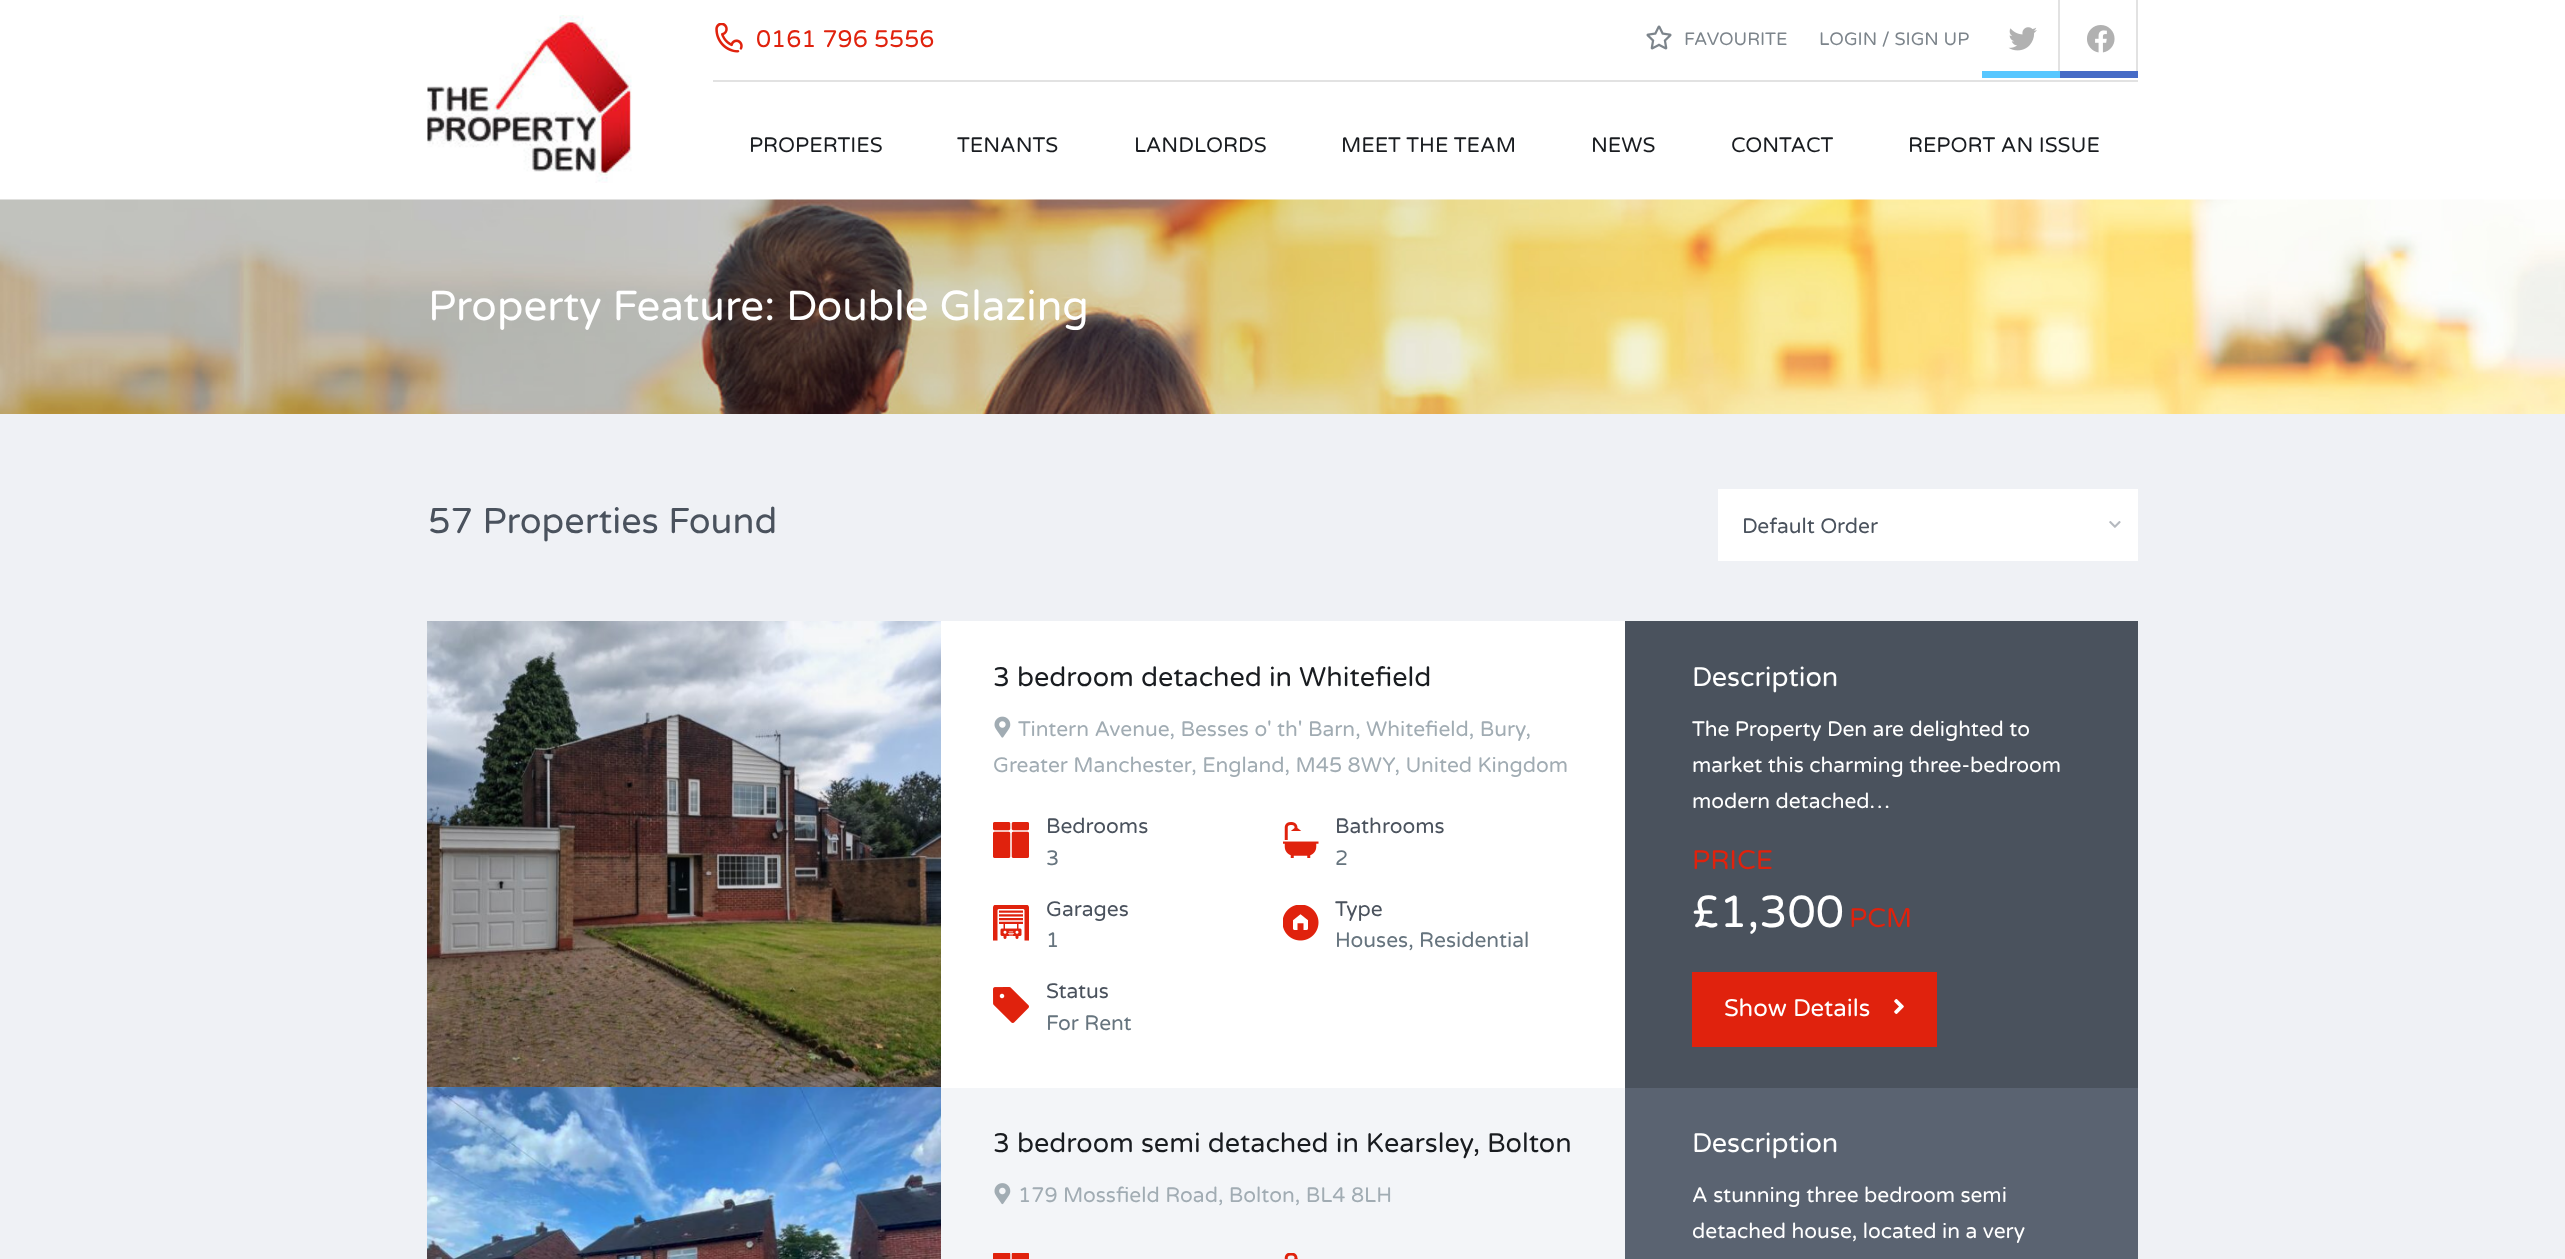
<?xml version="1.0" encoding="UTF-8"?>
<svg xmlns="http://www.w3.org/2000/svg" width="2565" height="1259">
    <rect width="100%" height="100%" fill="#EFF1F5"/>
    <rect x="0" y="0" width="2565" height="200" fill="#FFFFFF"/>
    <image x="427" y="15" width="205" height="168" href="img_01.png"/>
    <rect x="713" y="80" width="1425" height="2" fill="#E2E2E2"/>
    <image x="715" y="23" width="28" height="30" href="img_02.png"/>
    <text x="756" y="47" font-family="Varela Round" font-size="24" fill="#E0220D">0161 796 5556</text>
    <image x="1646" y="25" width="26" height="25" href="img_03.png"/>
    <text x="1684" y="45" font-family="Varela Round" font-size="18" fill="#7C848B">FAVOURITE</text>
    <text x="1819" y="45" font-family="Varela Round" font-size="18" fill="#7C848B">LOGIN / SIGN UP</text>
    <rect x="1982" y="71" width="78" height="7" fill="#58C7FF"/>
    <rect x="2058" y="0" width="2" height="71" fill="#E2E2E2"/>
    <image x="2008" y="27" width="29" height="24" href="img_04.png"/>
    <rect x="2060" y="71" width="78" height="7" fill="#466BC6"/>
    <rect x="2136" y="0" width="2" height="71" fill="#E2E2E2"/>
    <image x="2087" y="25" width="28" height="28" href="img_05.png"/>
    <text x="749" y="152" font-family="Varela Round" font-size="21" fill="#191C20">PROPERTIES</text>
    <text x="957" y="152" font-family="Varela Round" font-size="21" fill="#191C20">TENANTS</text>
    <text x="1134" y="152" font-family="Varela Round" font-size="21" fill="#191C20">LANDLORDS</text>
    <text x="1341" y="152" font-family="Varela Round" font-size="21" fill="#191C20">MEET THE TEAM</text>
    <text x="1591" y="152" font-family="Varela Round" font-size="21" fill="#191C20">NEWS</text>
    <text x="1731" y="152" font-family="Varela Round" font-size="21" fill="#191C20">CONTACT</text>
    <text x="1908" y="152" font-family="Varela Round" font-size="21" fill="#191C20">REPORT AN ISSUE</text>
    <image x="0" y="199" width="2565" height="215" href="img_06.png"/>
    <text x="428" y="320" font-family="Varela Round" font-size="42" fill="#FFFFFF">Property Feature: Double Glazing</text>
    <text x="428" y="533" font-family="Varela Round" font-size="36" fill="#4A525D">57 Properties Found</text>
    <rect x="1718" y="489" width="420" height="72" fill="#FFFFFF"/>
    <text x="1742" y="533" font-family="Varela Round" font-size="21" fill="#4A525D">Default Order</text>
    <image x="2109" y="521" width="12" height="7" href="img_07.png"/>
    <rect x="941" y="621" width="684" height="467" fill="#FFFFFF"/>
    <image x="427" y="621" width="514" height="466" href="img_08.png"/>
    <text x="993" y="686" font-family="Varela Round" font-size="27" fill="#191C20">3 bedroom detached in Whitefield</text>
    <image x="994" y="716" width="17" height="22" href="img_09.png"/>
    <text x="1018" y="736" font-family="Varela Round" font-size="21" fill="#A1ACB3">Tintern Avenue, Besses o' th' Barn, Whitefield, Bury,</text>
    <text x="993" y="772" font-family="Varela Round" font-size="21" fill="#A1ACB3">Greater Manchester, England, M45 8WY, United Kingdom</text>
    <image x="993" y="822" width="36" height="36" href="img_10.png"/>
    <text x="1046" y="833" font-family="Varela Round" font-size="21" fill="#4A525D">Bedrooms</text>
    <text x="1046" y="865" font-family="Varela Round" font-size="21" fill="#66747E">3</text>
    <image x="1283" y="822" width="36" height="36" href="img_11.png"/>
    <text x="1335" y="833" font-family="Varela Round" font-size="21" fill="#4A525D">Bathrooms</text>
    <text x="1335" y="865" font-family="Varela Round" font-size="21" fill="#66747E">2</text>
    <image x="993" y="905" width="36" height="36" href="img_12.png"/>
    <text x="1046" y="916" font-family="Varela Round" font-size="21" fill="#4A525D">Garages</text>
    <text x="1046" y="947" font-family="Varela Round" font-size="21" fill="#66747E">1</text>
    <image x="1283" y="905" width="36" height="36" href="img_13.png"/>
    <text x="1335" y="916" font-family="Varela Round" font-size="21" fill="#4A525D">Type</text>
    <text x="1335" y="947" font-family="Varela Round" font-size="21" fill="#66747E">Houses, Residential</text>
    <image x="993" y="987" width="36" height="36" href="img_14.png"/>
    <text x="1046" y="998" font-family="Varela Round" font-size="21" fill="#4A525D">Status</text>
    <text x="1046" y="1030" font-family="Varela Round" font-size="21" fill="#66747E">For Rent</text>
    <rect x="1625" y="621" width="513" height="467" fill="#4A525D"/>
    <text x="1692" y="686" font-family="Varela Round" font-size="27" fill="#FFFFFF">Description</text>
    <text font-family="Varela Round" font-size="21" fill="#FFFFFF">
        <tspan x="1692" y="736">The Property Den are delighted to</tspan>
        <tspan x="1692" y="772">market this charming three-bedroom</tspan>
        <tspan x="1692" y="808">modern detached…</tspan>
    </text>
    <text x="1692" y="869" font-family="Varela Round" font-size="27" fill="#E0220D">PRICE</text>
    <text x="1692" y="927" font-family="Varela Round" font-size="45" fill="#FFFFFF">£1,300</text>
    <text x="1849" y="927" font-family="Varela Round" font-size="27" fill="#E0220D">PCM</text>
    <rect x="1692" y="972" width="245" height="75" fill="#E0220D"/>
    <text x="1724" y="1016" font-family="Varela Round" font-size="24" fill="#FFFFFF">Show Details</text>
    <image x="1894" y="999" width="10" height="15" href="img_15.png"/>
    <rect x="941" y="1088" width="684" height="171" fill="#F3F5F8"/>
    <image x="427" y="1087" width="514" height="172" href="img_16.png"/>
    <text x="993" y="1152" font-family="Varela Round" font-size="27" fill="#191C20">3 bedroom semi detached in Kearsley, Bolton</text>
    <image x="994" y="1183" width="17" height="22" href="img_17.png"/>
    <text x="1018" y="1202" font-family="Varela Round" font-size="21" fill="#A1ACB3">179 Mossfield Road, Bolton, BL4 8LH</text>
    <image x="993" y="1253" width="36" height="6" href="img_18.png"/>
    <image x="1284" y="1253" width="14" height="6" href="img_19.png"/>
    <rect x="1625" y="1088" width="513" height="171" fill="#5A6371"/>
    <text x="1692" y="1152" font-family="Varela Round" font-size="27" fill="#FFFFFF">Description</text>
    <text font-family="Varela Round" font-size="21" fill="#FFFFFF">
        <tspan x="1692" y="1202">A stunning three bedroom semi</tspan>
        <tspan x="1692" y="1238">detached house, located in a very</tspan>
    </text>
</svg>
